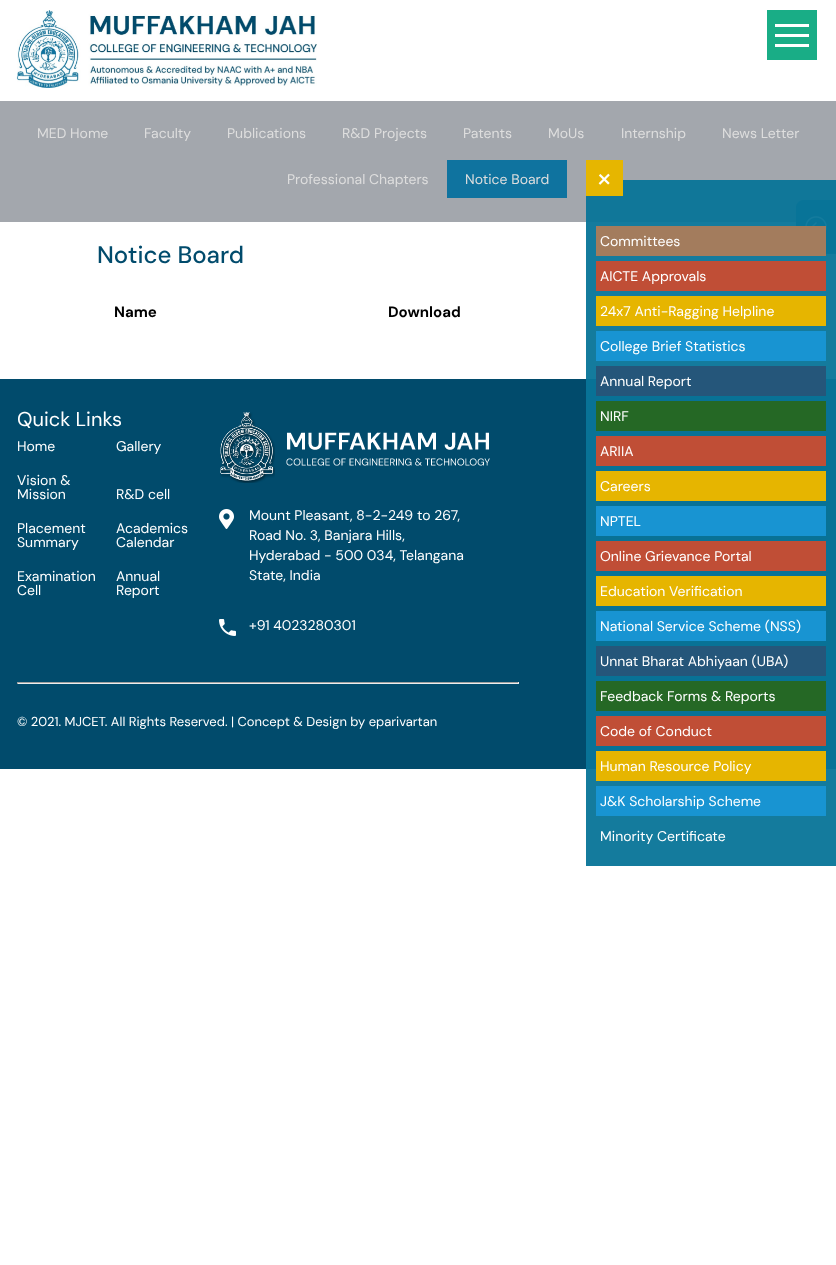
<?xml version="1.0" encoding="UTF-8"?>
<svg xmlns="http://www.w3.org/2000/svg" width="836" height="1265">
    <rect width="100%" height="100%" fill="#FFFFFF"/>
    <rect x="586" y="222" width="250" height="644" fill="#147B9D"/>
    <image x="16" y="10" width="301" height="78" href="img_01.png"/>
    <rect x="767" y="10" width="50" height="50" fill="#19AD86"/>
    <rect x="775" y="34" width="34" height="3" fill="#FFFFFF"/>
    <rect x="775" y="24" width="34" height="3" fill="#FFFFFF"/>
    <rect x="775" y="44" width="34" height="3" fill="#FFFFFF"/>
    <rect x="0" y="101" width="836" height="121" fill="#A3A7AD"/>
    <rect x="586" y="180" width="250" height="42" fill="#107799"/>
    <text x="37" y="138" font-family="DM Sans" font-size="14" fill="#DEDEDE">MED Home</text>
    <text x="144" y="138" font-family="DM Sans" font-size="14" fill="#DEDEDE">Faculty</text>
    <text x="227" y="138" font-family="DM Sans" font-size="14" fill="#DEDEDE">Publications</text>
    <text x="342" y="138" font-family="DM Sans" font-size="14" fill="#DEDEDE">R&amp;D Projects</text>
    <text x="463" y="138" font-family="DM Sans" font-size="14" fill="#DEDEDE">Patents</text>
    <text x="548" y="138" font-family="DM Sans" font-size="14" fill="#DEDEDE">MoUs</text>
    <text x="621" y="138" font-family="DM Sans" font-size="14" fill="#DEDEDE">Internship</text>
    <text x="722" y="138" font-family="DM Sans" font-size="14" fill="#DEDEDE">News Letter</text>
    <text x="287" y="184" font-family="DM Sans" font-size="14" fill="#DEDEDE">Professional Chapters</text>
    <rect x="447" y="160" width="120" height="38" fill="#0F739F"/>
    <text x="465" y="184" font-family="DM Sans" font-size="14" fill="#DEDEDE">Notice Board</text>
    <rect x="586" y="160" width="37" height="36" fill="#E6B600"/>
    <text x="596" y="188" font-family="DM Sans" font-size="30" fill="#FFFFFF">×</text>
    <image x="796" y="200" width="40" height="54" href="img_02.png"/>
    <rect x="596" y="226" width="230" height="30" fill="#A37C5D"/>
    <text x="600" y="246" font-family="DM Sans" font-size="14" fill="#FFFFFF">Committees</text>
    <rect x="596" y="261" width="230" height="30" fill="#C04E36"/>
    <text x="600" y="281" font-family="DM Sans" font-size="14" fill="#FFFFFF">AICTE Approvals</text>
    <rect x="596" y="296" width="230" height="30" fill="#E6B500"/>
    <text x="600" y="316" font-family="DM Sans" font-size="14" fill="#FFFFFF">24x7 Anti-Ragging Helpline</text>
    <rect x="596" y="331" width="230" height="30" fill="#1894D2"/>
    <text x="600" y="351" font-family="DM Sans" font-size="14" fill="#FFFFFF">College Brief Statistics</text>
    <rect x="586" y="379" width="250" height="390" fill="#087296"/>
    <rect x="596" y="366" width="230" height="30" fill="#25567A"/>
    <text x="600" y="386" font-family="DM Sans" font-size="14" fill="#FFFFFF">Annual Report</text>
    <rect x="596" y="401" width="230" height="30" fill="#256825"/>
    <text x="600" y="421" font-family="DM Sans" font-size="14" fill="#FFFFFF">NIRF</text>
    <rect x="596" y="436" width="230" height="30" fill="#C04E36"/>
    <text x="600" y="456" font-family="DM Sans" font-size="14" fill="#FFFFFF">ARIIA</text>
    <rect x="596" y="471" width="230" height="30" fill="#E6B500"/>
    <text x="600" y="491" font-family="DM Sans" font-size="14" fill="#FFFFFF">Careers</text>
    <rect x="596" y="506" width="230" height="30" fill="#1894D2"/>
    <text x="600" y="526" font-family="DM Sans" font-size="14" fill="#FFFFFF">NPTEL</text>
    <rect x="596" y="541" width="230" height="30" fill="#C04E36"/>
    <text x="600" y="561" font-family="DM Sans" font-size="14" fill="#FFFFFF">Online Grievance Portal</text>
    <rect x="596" y="576" width="230" height="30" fill="#E6B500"/>
    <text x="600" y="596" font-family="DM Sans" font-size="14" fill="#FFFFFF">Education Verification</text>
    <rect x="596" y="611" width="230" height="30" fill="#1894D2"/>
    <text x="600" y="631" font-family="DM Sans" font-size="14" fill="#FFFFFF">National Service Scheme (NSS)</text>
    <rect x="596" y="646" width="230" height="30" fill="#25567A"/>
    <text x="600" y="666" font-family="DM Sans" font-size="14" fill="#FFFFFF">Unnat Bharat Abhiyaan (UBA)</text>
    <rect x="596" y="681" width="230" height="30" fill="#256825"/>
    <text x="600" y="701" font-family="DM Sans" font-size="14" fill="#FFFFFF">Feedback Forms &amp; Reports</text>
    <rect x="596" y="716" width="230" height="30" fill="#C04E36"/>
    <text x="600" y="736" font-family="DM Sans" font-size="14" fill="#FFFFFF">Code of Conduct</text>
    <rect x="596" y="751" width="230" height="30" fill="#E6B500"/>
    <text x="600" y="771" font-family="DM Sans" font-size="14" fill="#FFFFFF">Human Resource Policy</text>
    <rect x="596" y="786" width="230" height="30" fill="#1894D2"/>
    <text x="600" y="806" font-family="DM Sans" font-size="14" fill="#FFFFFF">J&amp;K Scholarship Scheme</text>
    <text x="600" y="841" font-family="DM Sans" font-size="14" fill="#FFFFFF">Minority Certificate</text>
    <text x="97" y="263" font-family="DM Sans" font-size="24" font-weight="500" fill="#014B6C">Notice Board</text>
    <text x="114" y="317" font-family="DM Sans" font-size="15" font-weight="700" fill="#000000">Name</text>
    <text x="388" y="317" font-family="DM Sans" font-size="15" font-weight="700" fill="#000000">Download</text>
    <rect x="0" y="379" width="586" height="390" fill="#014B6C"/>
    <text x="17" y="426" font-family="DM Sans" font-size="20" fill="#FFFFFF">Quick Links</text>
    <text x="17" y="451" font-family="DM Sans" font-size="14" fill="#FFFFFF">Home</text>
    <text x="116" y="451" font-family="DM Sans" font-size="14" fill="#FFFFFF">Gallery</text>
    <text font-family="DM Sans" font-size="14" fill="#FFFFFF">
        <tspan x="17" y="485">Vision &amp;</tspan>
        <tspan x="17" y="499">Mission</tspan>
    </text>
    <text x="116" y="499" font-family="DM Sans" font-size="14" fill="#FFFFFF">R&amp;D cell</text>
    <text font-family="DM Sans" font-size="14" fill="#FFFFFF">
        <tspan x="17" y="533">Placement</tspan>
        <tspan x="17" y="547">Summary</tspan>
    </text>
    <text font-family="DM Sans" font-size="14" fill="#FFFFFF">
        <tspan x="116" y="533">Academics</tspan>
        <tspan x="116" y="547">Calendar</tspan>
    </text>
    <text font-family="DM Sans" font-size="14" fill="#FFFFFF">
        <tspan x="17" y="581">Examination</tspan>
        <tspan x="17" y="595">Cell</tspan>
    </text>
    <text font-family="DM Sans" font-size="14" fill="#FFFFFF">
        <tspan x="116" y="581">Annual</tspan>
        <tspan x="116" y="595">Report</tspan>
    </text>
    <image x="220" y="412" width="270" height="71" href="img_03.png"/>
    <image x="219" y="509" width="15" height="20" href="img_04.png"/>
    <text font-family="DM Sans" font-size="14" fill="#FFFFFF">
        <tspan x="249" y="520">Mount Pleasant, 8-2-249 to 267,</tspan>
        <tspan x="249" y="540">Road No. 3, Banjara Hills,</tspan>
        <tspan x="249" y="560">Hyderabad - 500 034, Telangana</tspan>
        <tspan x="249" y="580">State, India</tspan>
    </text>
    <image x="219" y="619" width="17" height="17" href="img_05.png"/>
    <text x="249" y="630" font-family="DM Sans" font-size="14" fill="#FFFFFF">+91 4023280301</text>
    <rect x="17" y="682" width="502" height="1" fill="#9F9F9F"/>
    <rect x="518" y="682" width="1" height="2" fill="#EEEEEE"/>
    <rect x="17" y="683" width="502" height="1" fill="#EEEEEE"/>
    <rect x="17" y="682" width="1" height="2" fill="#9F9F9F"/>
    <text x="17" y="726" font-family="DM Sans" font-size="13" fill="#FFFFFF">© 2021. MJCET. All Rights Reserved. | Concept &amp; Design by eparivartan</text>
</svg>
